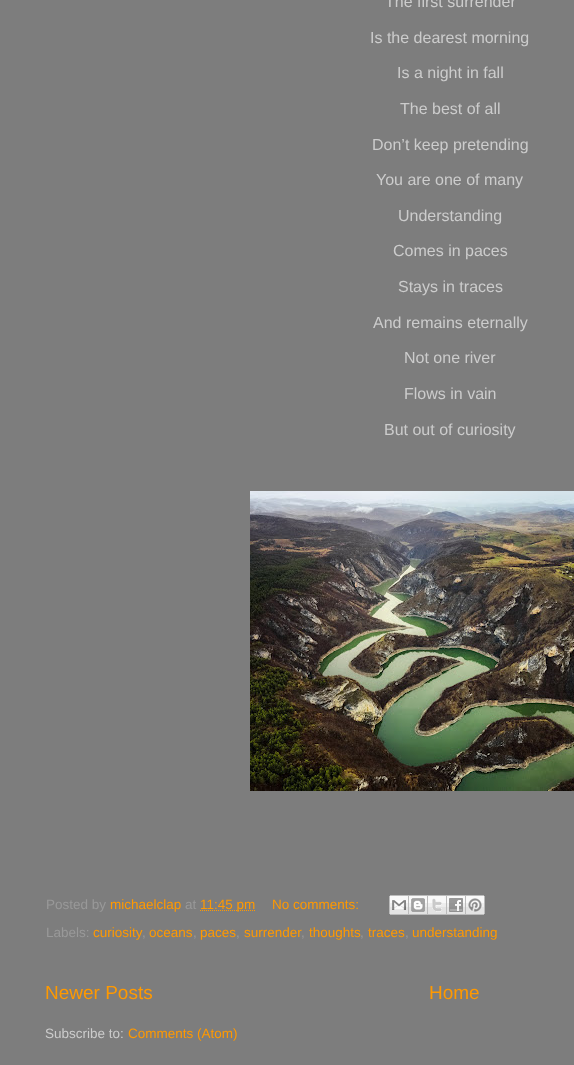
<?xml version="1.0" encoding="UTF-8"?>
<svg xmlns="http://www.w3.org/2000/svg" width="574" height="1065">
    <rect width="100%" height="100%" fill="#7D7D7D"/>
    <text x="385" y="7" font-family="Liberation Sans" font-size="16" fill="#CCCCCC">The first surrender</text>
    <text x="370" y="43" font-family="Liberation Sans" font-size="16" fill="#CCCCCC">Is the dearest morning</text>
    <text x="397" y="78" font-family="Liberation Sans" font-size="16" fill="#CCCCCC">Is a night in fall</text>
    <text x="400" y="114" font-family="Liberation Sans" font-size="16" fill="#CCCCCC">The best of all</text>
    <text x="372" y="150" font-family="Liberation Sans" font-size="16" fill="#CCCCCC">Don’t keep pretending</text>
    <text x="376" y="185" font-family="Liberation Sans" font-size="16" fill="#CCCCCC">You are one of many</text>
    <text x="398" y="221" font-family="Liberation Sans" font-size="16" fill="#CCCCCC">Understanding</text>
    <text x="393" y="256" font-family="Liberation Sans" font-size="16" fill="#CCCCCC">Comes in paces</text>
    <text x="398" y="292" font-family="Liberation Sans" font-size="16" fill="#CCCCCC">Stays in traces</text>
    <text x="373" y="328" font-family="Liberation Sans" font-size="16" fill="#CCCCCC">And remains eternally</text>
    <text x="404" y="363" font-family="Liberation Sans" font-size="16" fill="#CCCCCC">Not one river</text>
    <text x="404" y="399" font-family="Liberation Sans" font-size="16" fill="#CCCCCC">Flows in vain</text>
    <text x="384" y="435" font-family="Liberation Sans" font-size="16" fill="#CCCCCC">But out of curiosity</text>
    <image x="250" y="491" width="324" height="300" href="img_01.png"/>
    <text x="46" y="909" font-family="Liberation Sans" font-size="13.5" fill="#999999">Posted by</text>
    <text x="110" y="909" font-family="Liberation Sans" font-size="13.5" fill="#FF9900">michaelclap</text>
    <text x="185" y="909" font-family="Liberation Sans" font-size="13.5" fill="#999999">at</text>
    <path d="M 200 910.5 H 255" fill="none" stroke="#FF9900" stroke-dasharray="1 1"/>
    <text x="200" y="909" font-family="Liberation Sans" font-size="13.5" fill="#FF9900">11:45 pm</text>
    <text x="272" y="909" font-family="Liberation Sans" font-size="13.5" fill="#FF9900">No comments:</text>
    <image x="389" y="895" width="20" height="20" href="img_02.png"/>
    <image x="409" y="895" width="19" height="20" href="img_03.png"/>
    <image x="428" y="895" width="19" height="20" href="img_04.png"/>
    <image x="447" y="895" width="19" height="20" href="img_05.png"/>
    <image x="466" y="895" width="19" height="20" href="img_06.png"/>
    <text x="46" y="937" font-family="Liberation Sans" font-size="13.5" fill="#999999">Labels:</text>
    <text x="93" y="937" font-family="Liberation Sans" font-size="13.5" fill="#FF9900">curiosity</text>
    <text x="142" y="937" font-family="Liberation Sans" font-size="13.5" fill="#999999">,</text>
    <text x="149" y="937" font-family="Liberation Sans" font-size="13.5" fill="#FF9900">oceans</text>
    <text x="193" y="937" font-family="Liberation Sans" font-size="13.5" fill="#999999">,</text>
    <text x="200" y="937" font-family="Liberation Sans" font-size="13.5" fill="#FF9900">paces</text>
    <text x="236" y="937" font-family="Liberation Sans" font-size="13.5" fill="#999999">,</text>
    <text x="244" y="937" font-family="Liberation Sans" font-size="13.5" fill="#FF9900">surrender</text>
    <text x="301" y="937" font-family="Liberation Sans" font-size="13.5" fill="#999999">,</text>
    <text x="309" y="937" font-family="Liberation Sans" font-size="13.5" fill="#FF9900">thoughts</text>
    <text x="360" y="937" font-family="Liberation Sans" font-size="13.5" fill="#999999">,</text>
    <text x="368" y="937" font-family="Liberation Sans" font-size="13.5" fill="#FF9900">traces</text>
    <text x="405" y="937" font-family="Liberation Sans" font-size="13.5" fill="#999999">,</text>
    <text x="412" y="937" font-family="Liberation Sans" font-size="13.5" fill="#FF9900">understanding</text>
    <text x="45" y="999" font-family="Liberation Sans" font-size="19" fill="#FF9900">Newer Posts</text>
    <text x="429" y="999" font-family="Liberation Sans" font-size="19" fill="#FF9900">Home</text>
    <text x="45" y="1038" font-family="Liberation Sans" font-size="13.5" fill="#CCCCCC">Subscribe to:</text>
    <text x="128" y="1038" font-family="Liberation Sans" font-size="13.5" fill="#FF9900">Comments (Atom)</text>
</svg>
